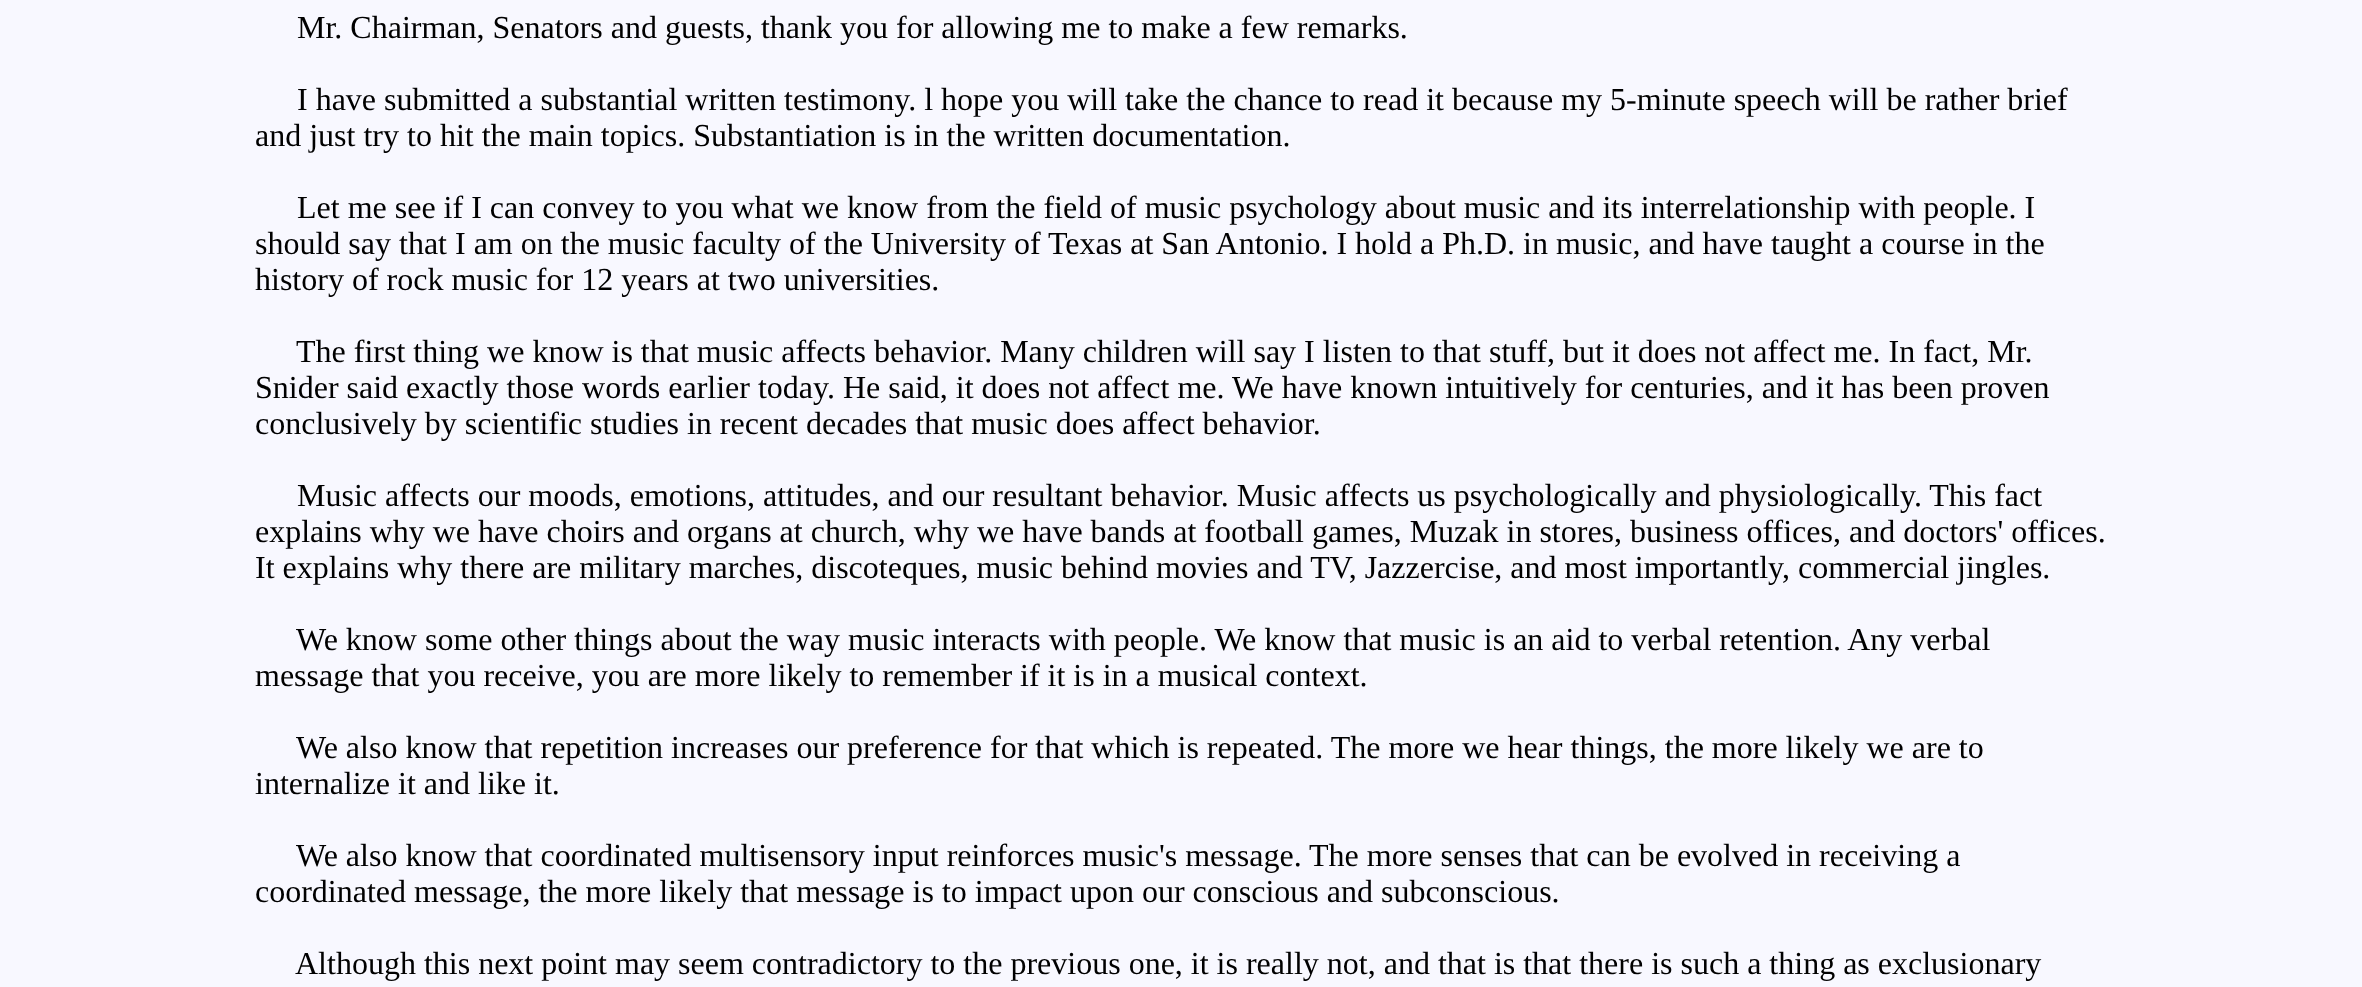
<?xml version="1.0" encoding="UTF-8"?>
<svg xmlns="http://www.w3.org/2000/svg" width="2362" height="987">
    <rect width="100%" height="100%" fill="#F8F8FF"/>
    <text x="297" y="38" font-family="Liberation Serif" font-size="32" fill="#000000">Mr. Chairman, Senators and guests, thank you for allowing me to make a few remarks.</text>
    <text x="297" y="110" font-family="Liberation Serif" font-size="32" fill="#000000">I have submitted a substantial written testimony. l hope you will take the chance to read it because my 5-minute speech will be rather brief</text>
    <text x="255" y="146" font-family="Liberation Serif" font-size="32" fill="#000000">and just try to hit the main topics. Substantiation is in the written documentation.</text>
    <text x="297" y="218" font-family="Liberation Serif" font-size="32" fill="#000000">Let me see if I can convey to you what we know from the field of music psychology about music and its interrelationship with people. I</text>
    <text font-family="Liberation Serif" font-size="32" fill="#000000">
        <tspan x="255" y="254">should say that I am on the music faculty of the University of Texas at San Antonio. I hold a Ph.D. in music, and have taught a course in the</tspan>
        <tspan x="255" y="290">history of rock music for 12 years at two universities.</tspan>
    </text>
    <text x="296" y="362" font-family="Liberation Serif" font-size="32" fill="#000000">The first thing we know is that music affects behavior. Many children will say I listen to that stuff, but it does not affect me. In fact, Mr.</text>
    <text font-family="Liberation Serif" font-size="32" fill="#000000">
        <tspan x="255" y="398">Snider said exactly those words earlier today. He said, it does not affect me. We have known intuitively for centuries, and it has been proven</tspan>
        <tspan x="255" y="434">conclusively by scientific studies in recent decades that music does affect behavior.</tspan>
    </text>
    <text x="297" y="506" font-family="Liberation Serif" font-size="32" fill="#000000">Music affects our moods, emotions, attitudes, and our resultant behavior. Music affects us psychologically and physiologically. This fact</text>
    <text font-family="Liberation Serif" font-size="32" fill="#000000">
        <tspan x="255" y="542">explains why we have choirs and organs at church, why we have bands at football games, Muzak in stores, business offices, and doctors' offices.</tspan>
        <tspan x="255" y="578">It explains why there are military marches, discoteques, music behind movies and TV, Jazzercise, and most importantly, commercial jingles.</tspan>
    </text>
    <text x="296" y="650" font-family="Liberation Serif" font-size="32" fill="#000000">We know some other things about the way music interacts with people. We know that music is an aid to verbal retention. Any verbal</text>
    <text x="255" y="686" font-family="Liberation Serif" font-size="32" fill="#000000">message that you receive, you are more likely to remember if it is in a musical context.</text>
    <text x="296" y="758" font-family="Liberation Serif" font-size="32" fill="#000000">We also know that repetition increases our preference for that which is repeated. The more we hear things, the more likely we are to</text>
    <text x="255" y="794" font-family="Liberation Serif" font-size="32" fill="#000000">internalize it and like it.</text>
    <text x="296" y="866" font-family="Liberation Serif" font-size="32" fill="#000000">We also know that coordinated multisensory input reinforces music's message. The more senses that can be evolved in receiving a</text>
    <text x="255" y="902" font-family="Liberation Serif" font-size="32" fill="#000000">coordinated message, the more likely that message is to impact upon our conscious and subconscious.</text>
    <text x="295" y="974" font-family="Liberation Serif" font-size="32" fill="#000000">Although this next point may seem contradictory to the previous one, it is really not, and that is that there is such a thing as exclusionary</text>
</svg>
